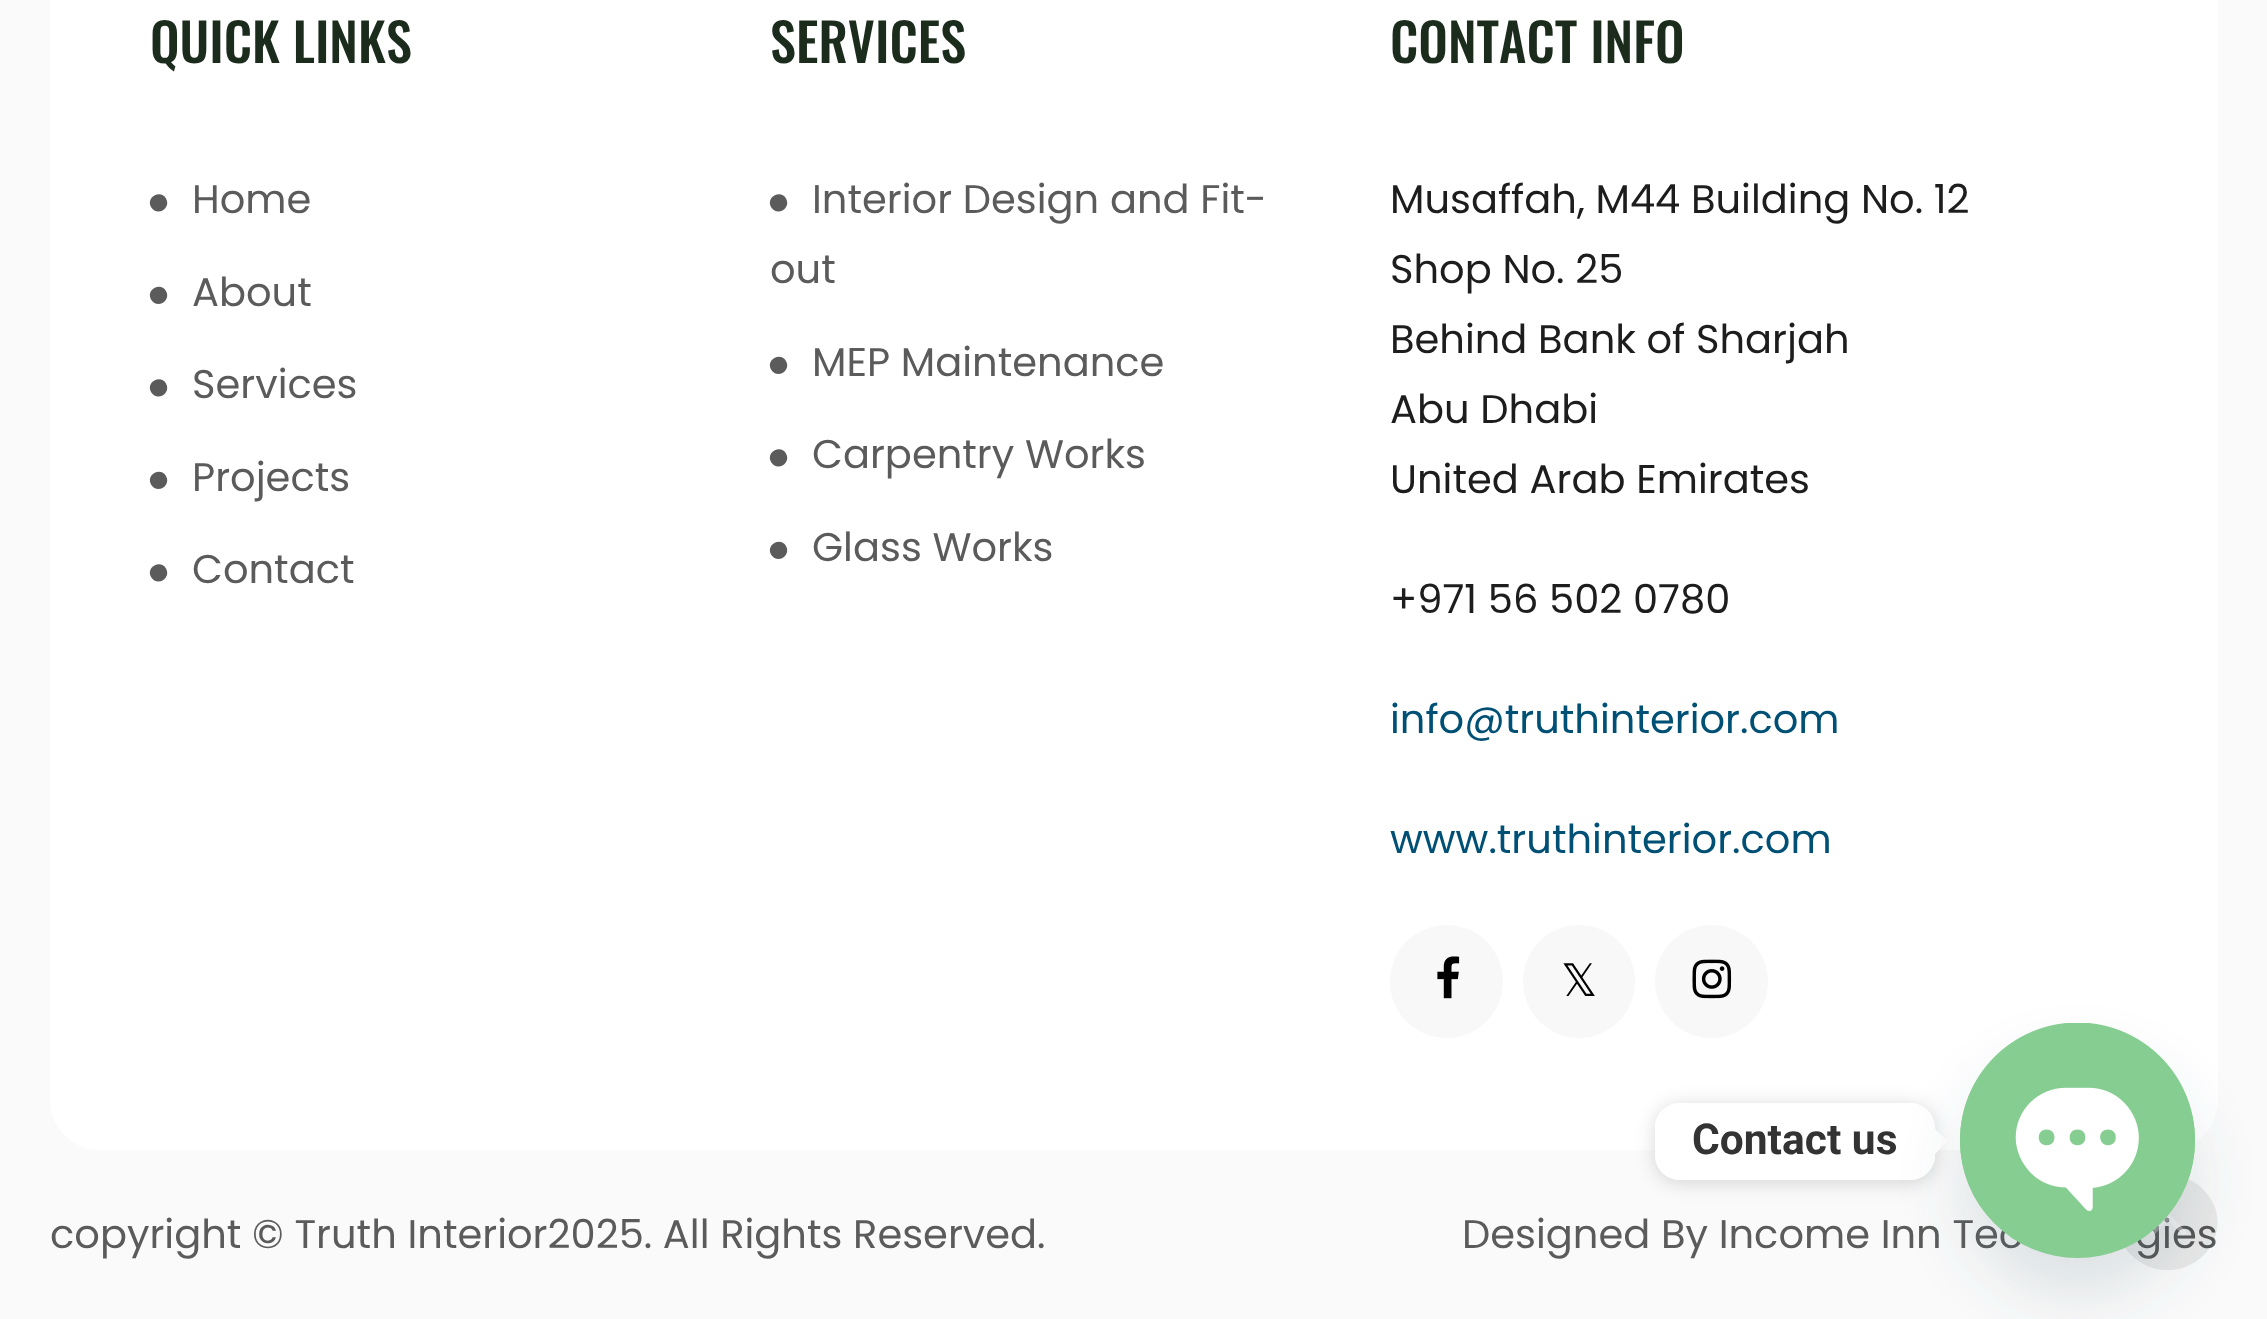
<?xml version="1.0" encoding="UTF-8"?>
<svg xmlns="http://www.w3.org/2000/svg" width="2267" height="1319">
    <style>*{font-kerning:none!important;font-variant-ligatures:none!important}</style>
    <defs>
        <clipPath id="clip1"><path d="M 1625 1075 H 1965 V 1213 H 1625 Z M 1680 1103 H 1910 C 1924 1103 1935 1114 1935 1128 V 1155 C 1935 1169 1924 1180 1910 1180 H 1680 C 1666 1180 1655 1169 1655 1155 V 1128 C 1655 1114 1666 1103 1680 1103 Z" clip-rule="evenodd"/></clipPath>
        <filter id="blur1" x="-50%" y="-200%" width="200%" height="500%"><feGaussianBlur stdDeviation="9.5"/></filter>
        <filter id="blur2" x="-50%" y="-200%" width="200%" height="500%"><feGaussianBlur stdDeviation="30"/></filter>
    </defs>
    <rect width="100%" height="100%" fill="#FAFAFA"/>
    <rect x="50" y="-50" width="2168" height="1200" rx="50" fill="#FFFFFF"/>
    <text x="150" y="63" font-family="Oswald" font-size="52.5" font-weight="500" fill="#1B2B1C">QUICK LINKS</text>
    <text x="192" y="213" font-family="Poppins" font-size="40" fill="#5B5B5B">Home</text>
    <path d="M 166 198.5 C 171.5 208.5 157 217 151 207 C 145.5 197.5 160.5 189 166 198.5 Z" fill="#5B5B5B"/>
    <text x="192" y="306" font-family="Poppins" font-size="40" fill="#5B5B5B">About</text>
    <path d="M 166 291 C 171.5 301 157 309.5 151 299.5 C 145.5 290 160.5 281.5 166 291 Z" fill="#5B5B5B"/>
    <text x="192" y="398" font-family="Poppins" font-size="40" fill="#5B5B5B">Services</text>
    <path d="M 166 383.5 C 171.5 393.5 157 402 151 392 C 145.5 382.5 160.5 374 166 383.5 Z" fill="#5B5B5B"/>
    <text x="192" y="491" font-family="Poppins" font-size="40" fill="#5B5B5B">Projects</text>
    <path d="M 166 476 C 171.5 486 157 494.5 151 484.5 C 145.5 475 160.5 466.5 166 476 Z" fill="#5B5B5B"/>
    <text x="192" y="583" font-family="Poppins" font-size="40" fill="#5B5B5B">Contact</text>
    <path d="M 166 568.5 C 171.5 578.5 157 587 151 577 C 145.5 567.5 160.5 559 166 568.5 Z" fill="#5B5B5B"/>
    <text x="770" y="63" font-family="Oswald" font-size="52.5" font-weight="500" fill="#1B2B1C">SERVICES</text>
    <text x="812" y="213" font-family="Poppins" font-size="40" fill="#5B5B5B">Interior Design and Fit-</text>
    <path d="M 786 198.5 C 791.5 208.5 777 217 771 207 C 765.5 197.5 780.5 189 786 198.5 Z" fill="#5B5B5B"/>
    <text x="770" y="283" font-family="Poppins" font-size="40" fill="#5B5B5B">out</text>
    <text x="812" y="376" font-family="Poppins" font-size="40" fill="#5B5B5B">MEP Maintenance</text>
    <path d="M 786 361 C 791.5 371 777 379.5 771 369.5 C 765.5 360 780.5 351.5 786 361 Z" fill="#5B5B5B"/>
    <text x="812" y="468" font-family="Poppins" font-size="40" fill="#5B5B5B">Carpentry Works</text>
    <path d="M 786 453.5 C 791.5 463.5 777 472 771 462 C 765.5 452.5 780.5 444 786 453.5 Z" fill="#5B5B5B"/>
    <text x="812" y="561" font-family="Poppins" font-size="40" fill="#5B5B5B">Glass Works</text>
    <path d="M 786 546 C 791.5 556 777 564.5 771 554.5 C 765.5 545 780.5 536.5 786 546 Z" fill="#5B5B5B"/>
    <text x="1390" y="63" font-family="Oswald" font-size="52.5" font-weight="500" fill="#1B2B1C">CONTACT INFO</text>
    <text font-family="Poppins" font-size="40" fill="#1D1D1D">
        <tspan x="1390" y="213">Musaffah, M44 Building No. 12</tspan>
        <tspan x="1390" y="283">Shop No. 25</tspan>
        <tspan x="1390" y="353">Behind Bank of Sharjah</tspan>
        <tspan x="1390" y="423">Abu Dhabi</tspan>
        <tspan x="1390" y="493">United Arab Emirates</tspan>
    </text>
    <text x="1390" y="613" font-family="Poppins" font-size="40" fill="#1D1D1D">+971 56 502 0780</text>
    <text x="1390" y="733" font-family="Poppins" font-size="40" fill="#005075">info@truthinterior.com</text>
    <text x="1390" y="853" font-family="Poppins" font-size="40" fill="#005075">www.truthinterior.com</text>
    <circle cx="1446.5" cy="981.5" r="56.5" fill="#F8F8F8"/>
    <image x="1437" y="956" width="23" height="43" href="img_01.png"/>
    <rect x="1523" y="925" width="112" height="113" rx="56" fill="#F8F8F8"/>
    <text x="1561" y="996" font-family="DejaVu Sans" font-size="45" fill="#000000">𝕏</text>
    <circle cx="1711.5" cy="981.5" r="56.5" fill="#F8F8F8"/>
    <image x="1692" y="959" width="40" height="40" href="img_02.png"/>
    <text x="50" y="1248" font-family="Poppins" font-size="40" fill="#5B5B5B">copyright © Truth Interior2025. All Rights Reserved.</text>
    <text x="1462" y="1248" font-family="Poppins" font-size="40" fill="#5B5B5B">Designed By Income Inn Tec</text>
    <text x="2135" y="1248" font-family="Poppins" font-size="40" fill="#5B5B5B">gies</text>
    <ellipse cx="2167.5" cy="1222.5" rx="50" ry="47.5" fill="#000000" fill-opacity="0.07"/>
    <image x="2150" y="1214" width="36" height="22" href="img_03.png"/>
    <g clip-path="url(#clip1)">
        <rect x="1655" y="1105" width="280" height="78" rx="25" fill="#000000" fill-opacity="0.15" filter="url(#blur1)"/>
    </g>
    <rect x="1655" y="1103" width="280" height="77" rx="25" fill="#FFFFFF"/>
    <text x="1692" y="1154" font-family="Roboto" font-size="42.5" font-weight="700" fill="#333333">Contact us</text>
    <path d="M 1935 1154 V 1129 L 1947.5 1141 Z" fill="#FFFFFF"/>
    <rect x="1960" y="1063" width="235" height="235" rx="117.5" fill="#49687E" fill-opacity="0.16" filter="url(#blur2)"/>
    <circle cx="2077.5" cy="1140.5" r="117.5" fill="#86CD91"/>
    <image x="1960" y="1023" width="235" height="188" href="img_04.png"/>
</svg>
